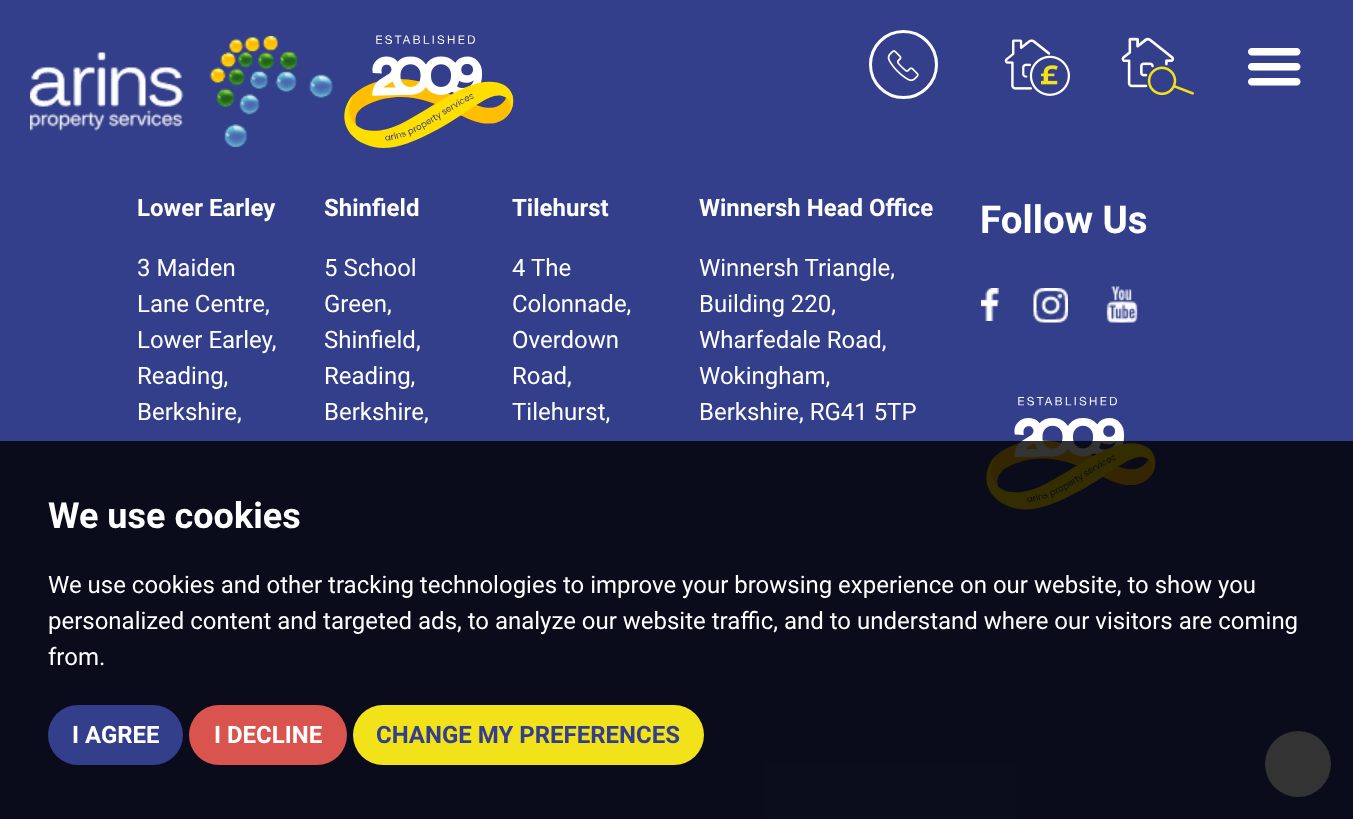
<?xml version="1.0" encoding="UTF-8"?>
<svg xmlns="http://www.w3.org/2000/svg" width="1353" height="819">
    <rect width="100%" height="100%" fill="#343F8C"/>
    <image x="30" y="36" width="303" height="111" href="img_01.png"/>
    <image x="344" y="35" width="170" height="113" href="img_02.png"/>
    <circle cx="903.5" cy="64.5" r="33" fill="none" stroke="#FFFFFF" stroke-width="3"/>
    <image x="887" y="50" width="32" height="32" href="img_03.png"/>
    <image x="1004" y="39" width="66" height="57" href="img_04.png"/>
    <image x="1121" y="37" width="73" height="59" href="img_05.png"/>
    <image x="1248" y="48" width="53" height="38" href="img_06.png"/>
    <text x="137" y="216" font-family="Roboto" font-size="24" font-weight="700" fill="#FFFFFF">Lower Earley</text>
    <text font-family="Roboto" font-size="24" fill="#FFFFFF">
        <tspan x="137" y="276">3 Maiden</tspan>
        <tspan x="137" y="312">Lane Centre,</tspan>
        <tspan x="137" y="348">Lower Earley,</tspan>
        <tspan x="137" y="384">Reading,</tspan>
        <tspan x="137" y="420">Berkshire,</tspan>
    </text>
    <text x="324" y="216" font-family="Roboto" font-size="24" font-weight="700" fill="#FFFFFF">Shinfield</text>
    <text font-family="Roboto" font-size="24" fill="#FFFFFF">
        <tspan x="324" y="276">5 School</tspan>
        <tspan x="324" y="312">Green,</tspan>
        <tspan x="324" y="348">Shinfield,</tspan>
        <tspan x="324" y="384">Reading,</tspan>
        <tspan x="324" y="420">Berkshire,</tspan>
    </text>
    <text x="512" y="216" font-family="Roboto" font-size="24" font-weight="700" fill="#FFFFFF">Tilehurst</text>
    <text font-family="Roboto" font-size="24" fill="#FFFFFF">
        <tspan x="512" y="276">4 The</tspan>
        <tspan x="512" y="312">Colonnade,</tspan>
        <tspan x="512" y="348">Overdown</tspan>
        <tspan x="512" y="384">Road,</tspan>
        <tspan x="512" y="420">Tilehurst,</tspan>
    </text>
    <text x="699" y="216" font-family="Roboto" font-size="24" font-weight="700" fill="#FFFFFF">Winnersh Head Office</text>
    <text font-family="Roboto" font-size="24" fill="#FFFFFF">
        <tspan x="699" y="276">Winnersh Triangle,</tspan>
        <tspan x="699" y="312">Building 220,</tspan>
        <tspan x="699" y="348">Wharfedale Road,</tspan>
        <tspan x="699" y="384">Wokingham,</tspan>
        <tspan x="699" y="420">Berkshire, RG41 5TP</tspan>
    </text>
    <text x="980" y="233" font-family="Roboto" font-size="38.5" font-weight="700" fill="#FFFFFF">Follow Us</text>
    <image x="981" y="288" width="18" height="33" href="img_07.png"/>
    <image x="1033" y="288" width="35" height="35" href="img_08.png"/>
    <image x="1106" y="286" width="32" height="37" href="img_09.png"/>
    <image x="986" y="396" width="170" height="114" href="img_10.png"/>
    <circle cx="1298" cy="764" r="33" fill="#FFFFFF"/>
    <rect x="0" y="441" width="1353" height="378" fill="#000000" fill-opacity="0.8"/>
    <text x="48" y="528" font-family="Roboto" font-size="36" font-weight="700" fill="#FFFFFF">We use cookies</text>
    <text font-family="Roboto" font-size="24" fill="#FFFFFF">
        <tspan x="48" y="593">We use cookies and other tracking technologies to improve your browsing experience on our website, to show you</tspan>
        <tspan x="48" y="629">personalized content and targeted ads, to analyze our website traffic, and to understand where our visitors are coming</tspan>
        <tspan x="48" y="665">from.</tspan>
    </text>
    <rect x="48" y="705" width="135" height="60" rx="30" fill="#343F8C"/>
    <text x="72" y="743" font-family="Roboto" font-size="24" font-weight="700" fill="#FFFFFF">I AGREE</text>
    <rect x="189" y="705" width="158" height="60" rx="30" fill="#D9534F"/>
    <text x="214" y="743" font-family="Roboto" font-size="24" font-weight="700" fill="#FFFFFF">I DECLINE</text>
    <rect x="353" y="705" width="351" height="60" rx="30" fill="#F1E21A"/>
    <text x="376" y="743" font-family="Roboto" font-size="24" font-weight="700" fill="#343F8C">CHANGE MY PREFERENCES</text>
</svg>
